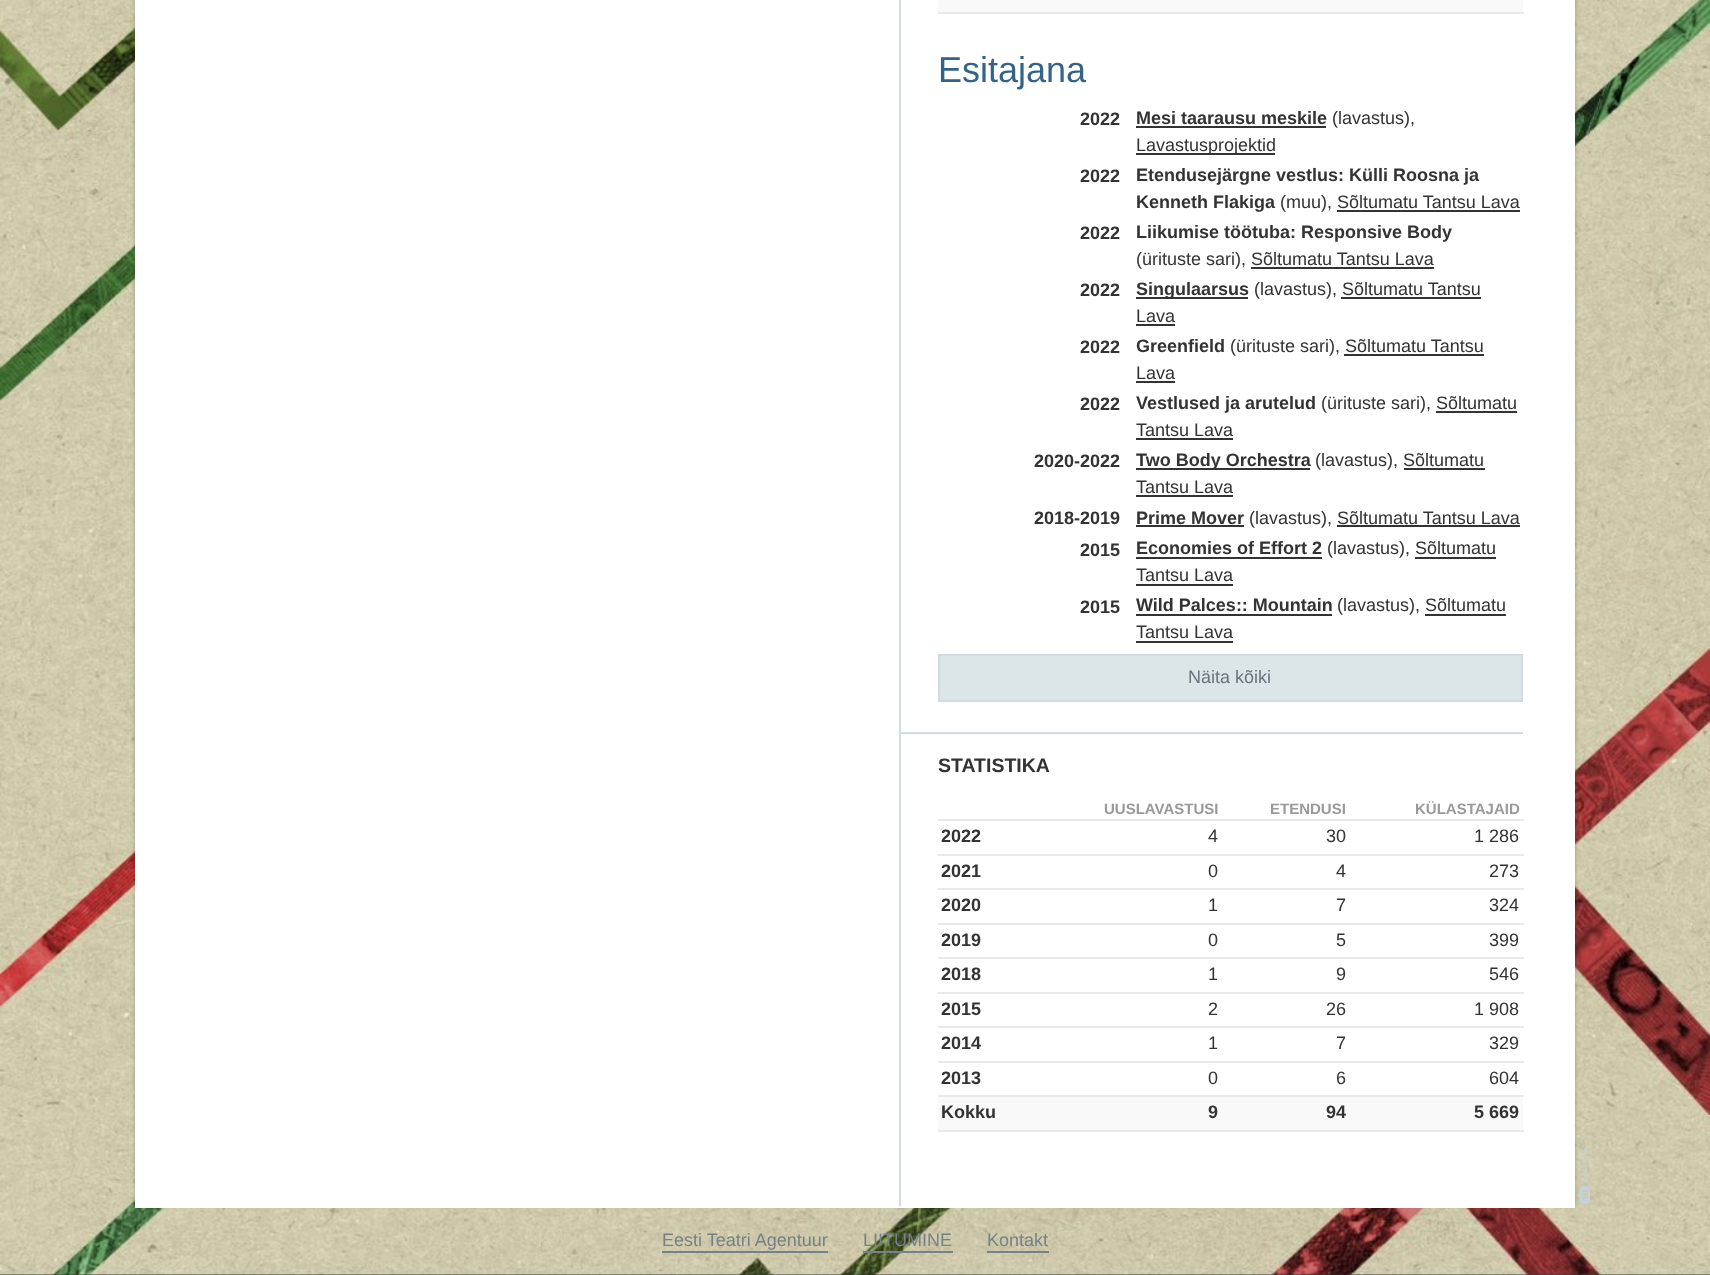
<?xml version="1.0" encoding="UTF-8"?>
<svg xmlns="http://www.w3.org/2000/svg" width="1710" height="1275">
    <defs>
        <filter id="blur1" x="-50%" y="-200%" width="200%" height="500%"><feGaussianBlur stdDeviation="2"/></filter>
    </defs>
    <rect width="100%" height="100%" fill="#363636"/>
    <image x="0" y="0" width="1710" height="1275" href="img_01.png"/>
    <image x="1579" y="1147" width="11" height="57" href="img_02.png"/>
    <rect x="135" y="-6" width="1440" height="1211" fill="#000000" fill-opacity="0.23" filter="url(#blur1)"/>
    <rect x="135" y="0" width="1440" height="1208" fill="#FFFFFF"/>
    <rect x="899" y="0" width="2" height="1206" fill="#D1DCE0"/>
    <rect x="938" y="0" width="585" height="12" fill="#F9F9F9"/>
    <rect x="938" y="12" width="586" height="2" fill="#E9E9E9"/>
    <text x="938" y="82" font-family="Liberation Sans" font-size="36" fill="#346388">Esitajana</text>
    <text x="1080" y="125" font-family="Liberation Sans" font-size="18" font-weight="700" fill="#333333">2022</text>
    <text x="1136" y="124" font-family="Liberation Sans" font-size="18" font-weight="700" fill="#333333">Mesi taarausu meskile</text>
    <rect x="1136" y="126" width="190" height="2" fill="#333333"/>
    <text x="1332" y="124" font-family="Liberation Sans" font-size="18" fill="#333333">(lavastus),</text>
    <rect x="1136" y="153" width="139" height="2" fill="#333333"/>
    <text x="1136" y="151" font-family="Liberation Sans" font-size="18" fill="#333333">Lavastusprojektid</text>
    <text x="1080" y="182" font-family="Liberation Sans" font-size="18" font-weight="700" fill="#333333">2022</text>
    <text font-family="Liberation Sans" font-size="18" font-weight="700" fill="#333333">
        <tspan x="1136" y="181">Etendusejärgne vestlus: Külli Roosna ja</tspan>
        <tspan x="1136" y="208">Kenneth Flakiga</tspan>
    </text>
    <text x="1280" y="208" font-family="Liberation Sans" font-size="18" fill="#333333">(muu), Sõltumatu Tantsu Lava</text>
    <rect x="1337" y="210" width="183" height="2" fill="#333333"/>
    <text x="1080" y="239" font-family="Liberation Sans" font-size="18" font-weight="700" fill="#333333">2022</text>
    <text x="1136" y="238" font-family="Liberation Sans" font-size="18" font-weight="700" fill="#333333">Liikumise töötuba: Responsive Body</text>
    <text x="1136" y="265" font-family="Liberation Sans" font-size="18" fill="#333333">(ürituste sari), Sõltumatu Tantsu Lava</text>
    <rect x="1251" y="267" width="183" height="2" fill="#333333"/>
    <text x="1080" y="296" font-family="Liberation Sans" font-size="18" font-weight="700" fill="#333333">2022</text>
    <rect x="1136" y="297" width="112" height="2" fill="#333333"/>
    <text x="1136" y="295" font-family="Liberation Sans" font-size="18" font-weight="700" fill="#333333">Singulaarsus</text>
    <text x="1254" y="295" font-family="Liberation Sans" font-size="18" fill="#333333">(lavastus), Sõltumatu Tantsu</text>
    <text x="1136" y="322" font-family="Liberation Sans" font-size="18" fill="#333333">Lava</text>
    <rect x="1341" y="297" width="140" height="2" fill="#333333"/>
    <rect x="1136" y="324" width="39" height="2" fill="#333333"/>
    <text x="1080" y="353" font-family="Liberation Sans" font-size="18" font-weight="700" fill="#333333">2022</text>
    <text x="1136" y="352" font-family="Liberation Sans" font-size="18" font-weight="700" fill="#333333">Greenfield</text>
    <text x="1230" y="352" font-family="Liberation Sans" font-size="18" fill="#333333">(ürituste sari), Sõltumatu Tantsu</text>
    <text x="1136" y="379" font-family="Liberation Sans" font-size="18" fill="#333333">Lava</text>
    <rect x="1344" y="354" width="140" height="2" fill="#333333"/>
    <rect x="1136" y="381" width="39" height="2" fill="#333333"/>
    <text x="1080" y="410" font-family="Liberation Sans" font-size="18" font-weight="700" fill="#333333">2022</text>
    <text x="1136" y="409" font-family="Liberation Sans" font-size="18" font-weight="700" fill="#333333">Vestlused ja arutelud</text>
    <text x="1321" y="409" font-family="Liberation Sans" font-size="18" fill="#333333">(ürituste sari), Sõltumatu</text>
    <text x="1136" y="436" font-family="Liberation Sans" font-size="18" fill="#333333">Tantsu Lava</text>
    <rect x="1436" y="411" width="81" height="2" fill="#333333"/>
    <rect x="1136" y="438" width="97" height="2" fill="#333333"/>
    <text x="1034" y="467" font-family="Liberation Sans" font-size="18" font-weight="700" fill="#333333">2020-2022</text>
    <rect x="1136" y="468" width="174" height="2" fill="#333333"/>
    <text x="1136" y="466" font-family="Liberation Sans" font-size="18" font-weight="700" fill="#333333">Two Body Orchestra</text>
    <text x="1315" y="466" font-family="Liberation Sans" font-size="18" fill="#333333">(lavastus), Sõltumatu</text>
    <text x="1136" y="493" font-family="Liberation Sans" font-size="18" fill="#333333">Tantsu Lava</text>
    <rect x="1404" y="468" width="81" height="2" fill="#333333"/>
    <rect x="1136" y="495" width="97" height="2" fill="#333333"/>
    <text x="1034" y="524" font-family="Liberation Sans" font-size="18" font-weight="700" fill="#333333">2018-2019</text>
    <text x="1136" y="524" font-family="Liberation Sans" font-size="18" font-weight="700" fill="#333333">Prime Mover</text>
    <rect x="1136" y="525" width="108" height="2" fill="#333333"/>
    <text x="1249" y="524" font-family="Liberation Sans" font-size="18" fill="#333333">(lavastus), Sõltumatu Tantsu Lava</text>
    <rect x="1337" y="525" width="183" height="2" fill="#333333"/>
    <text x="1080" y="556" font-family="Liberation Sans" font-size="18" font-weight="700" fill="#333333">2015</text>
    <text x="1136" y="554" font-family="Liberation Sans" font-size="18" font-weight="700" fill="#333333">Economies of Effort 2</text>
    <rect x="1136" y="557" width="186" height="2" fill="#333333"/>
    <text x="1327" y="554" font-family="Liberation Sans" font-size="18" fill="#333333">(lavastus), Sõltumatu</text>
    <text x="1136" y="581" font-family="Liberation Sans" font-size="18" fill="#333333">Tantsu Lava</text>
    <rect x="1415" y="557" width="81" height="2" fill="#333333"/>
    <rect x="1136" y="584" width="97" height="2" fill="#333333"/>
    <text x="1080" y="613" font-family="Liberation Sans" font-size="18" font-weight="700" fill="#333333">2015</text>
    <text x="1136" y="611" font-family="Liberation Sans" font-size="18" font-weight="700" fill="#333333">Wild Palces:: Mountain</text>
    <rect x="1136" y="614" width="196" height="2" fill="#333333"/>
    <text x="1337" y="611" font-family="Liberation Sans" font-size="18" fill="#333333">(lavastus), Sõltumatu</text>
    <text x="1136" y="638" font-family="Liberation Sans" font-size="18" fill="#333333">Tantsu Lava</text>
    <rect x="1425" y="614" width="81" height="2" fill="#333333"/>
    <rect x="1136" y="641" width="97" height="2" fill="#333333"/>
    <rect x="939" y="655" width="583" height="46" fill="#DCE6E9" stroke="#CFDCE0" stroke-width="2"/>
    <text x="1188" y="683" font-family="Liberation Sans" font-size="18" fill="#69747E">Näita kõiki</text>
    <rect x="900" y="732" width="623" height="2" fill="#D1DCE0"/>
    <text x="938" y="772" font-family="Liberation Sans" font-size="19.5" font-weight="700" fill="#333333">STATISTIKA</text>
    <text x="1104" y="814" font-family="Liberation Sans" font-size="15" font-weight="700" fill="#999999">UUSLAVASTUSI</text>
    <text x="1270" y="814" font-family="Liberation Sans" font-size="15" font-weight="700" fill="#999999">ETENDUSI</text>
    <rect x="938" y="819" width="586" height="2" fill="#E9E9E9"/>
    <text x="1415" y="814" font-family="Liberation Sans" font-size="15" font-weight="700" fill="#999999">KÜLASTAJAID</text>
    <text x="941" y="842" font-family="Liberation Sans" font-size="18" font-weight="700" fill="#333333">2022</text>
    <text x="1208" y="842" font-family="Liberation Sans" font-size="18" fill="#333333">4</text>
    <text x="1326" y="842" font-family="Liberation Sans" font-size="18" fill="#333333">30</text>
    <rect x="938" y="854" width="586" height="2" fill="#E9E9E9"/>
    <text x="1474" y="842" font-family="Liberation Sans" font-size="18" fill="#333333">1 286</text>
    <text x="941" y="877" font-family="Liberation Sans" font-size="18" font-weight="700" fill="#333333">2021</text>
    <text x="1208" y="877" font-family="Liberation Sans" font-size="18" fill="#333333">0</text>
    <text x="1336" y="877" font-family="Liberation Sans" font-size="18" fill="#333333">4</text>
    <rect x="938" y="888" width="586" height="2" fill="#E9E9E9"/>
    <text x="1489" y="877" font-family="Liberation Sans" font-size="18" fill="#333333">273</text>
    <text x="941" y="911" font-family="Liberation Sans" font-size="18" font-weight="700" fill="#333333">2020</text>
    <text x="1208" y="911" font-family="Liberation Sans" font-size="18" fill="#333333">1</text>
    <text x="1336" y="911" font-family="Liberation Sans" font-size="18" fill="#333333">7</text>
    <rect x="938" y="923" width="586" height="2" fill="#E9E9E9"/>
    <text x="1489" y="911" font-family="Liberation Sans" font-size="18" fill="#333333">324</text>
    <text x="941" y="946" font-family="Liberation Sans" font-size="18" font-weight="700" fill="#333333">2019</text>
    <text x="1208" y="946" font-family="Liberation Sans" font-size="18" fill="#333333">0</text>
    <text x="1336" y="946" font-family="Liberation Sans" font-size="18" fill="#333333">5</text>
    <rect x="938" y="957" width="586" height="2" fill="#E9E9E9"/>
    <text x="1489" y="946" font-family="Liberation Sans" font-size="18" fill="#333333">399</text>
    <text x="941" y="980" font-family="Liberation Sans" font-size="18" font-weight="700" fill="#333333">2018</text>
    <text x="1208" y="980" font-family="Liberation Sans" font-size="18" fill="#333333">1</text>
    <text x="1336" y="980" font-family="Liberation Sans" font-size="18" fill="#333333">9</text>
    <rect x="938" y="992" width="586" height="2" fill="#E9E9E9"/>
    <text x="1489" y="980" font-family="Liberation Sans" font-size="18" fill="#333333">546</text>
    <text x="941" y="1015" font-family="Liberation Sans" font-size="18" font-weight="700" fill="#333333">2015</text>
    <text x="1208" y="1015" font-family="Liberation Sans" font-size="18" fill="#333333">2</text>
    <text x="1326" y="1015" font-family="Liberation Sans" font-size="18" fill="#333333">26</text>
    <rect x="938" y="1026" width="586" height="2" fill="#E9E9E9"/>
    <text x="1474" y="1015" font-family="Liberation Sans" font-size="18" fill="#333333">1 908</text>
    <text x="941" y="1049" font-family="Liberation Sans" font-size="18" font-weight="700" fill="#333333">2014</text>
    <text x="1208" y="1049" font-family="Liberation Sans" font-size="18" fill="#333333">1</text>
    <text x="1336" y="1049" font-family="Liberation Sans" font-size="18" fill="#333333">7</text>
    <rect x="938" y="1061" width="586" height="2" fill="#E9E9E9"/>
    <text x="1489" y="1049" font-family="Liberation Sans" font-size="18" fill="#333333">329</text>
    <text x="941" y="1084" font-family="Liberation Sans" font-size="18" font-weight="700" fill="#333333">2013</text>
    <text x="1208" y="1084" font-family="Liberation Sans" font-size="18" fill="#333333">0</text>
    <text x="1336" y="1084" font-family="Liberation Sans" font-size="18" fill="#333333">6</text>
    <rect x="938" y="1095" width="586" height="2" fill="#E9E9E9"/>
    <text x="1489" y="1084" font-family="Liberation Sans" font-size="18" fill="#333333">604</text>
    <rect x="938" y="1097" width="585" height="33" fill="#F9F9F9"/>
    <text x="941" y="1118" font-family="Liberation Sans" font-size="18" font-weight="700" fill="#333333">Kokku</text>
    <text x="1208" y="1118" font-family="Liberation Sans" font-size="18" font-weight="700" fill="#333333">9</text>
    <text x="1326" y="1118" font-family="Liberation Sans" font-size="18" font-weight="700" fill="#333333">94</text>
    <rect x="938" y="1130" width="586" height="2" fill="#E9E9E9"/>
    <text x="1474" y="1118" font-family="Liberation Sans" font-size="18" font-weight="700" fill="#333333">5 669</text>
    <text x="662" y="1246" font-family="Liberation Sans" font-size="18" fill="#768287">Eesti Teatri Agentuur</text>
    <rect x="662" y="1251" width="166" height="2" fill="#768287"/>
    <text x="863" y="1246" font-family="Liberation Sans" font-size="18" fill="#768287">LIITUMINE</text>
    <rect x="863" y="1251" width="90" height="2" fill="#768287"/>
    <text x="987" y="1246" font-family="Liberation Sans" font-size="18" fill="#768287">Kontakt</text>
    <rect x="987" y="1251" width="62" height="2" fill="#768287"/>
</svg>
